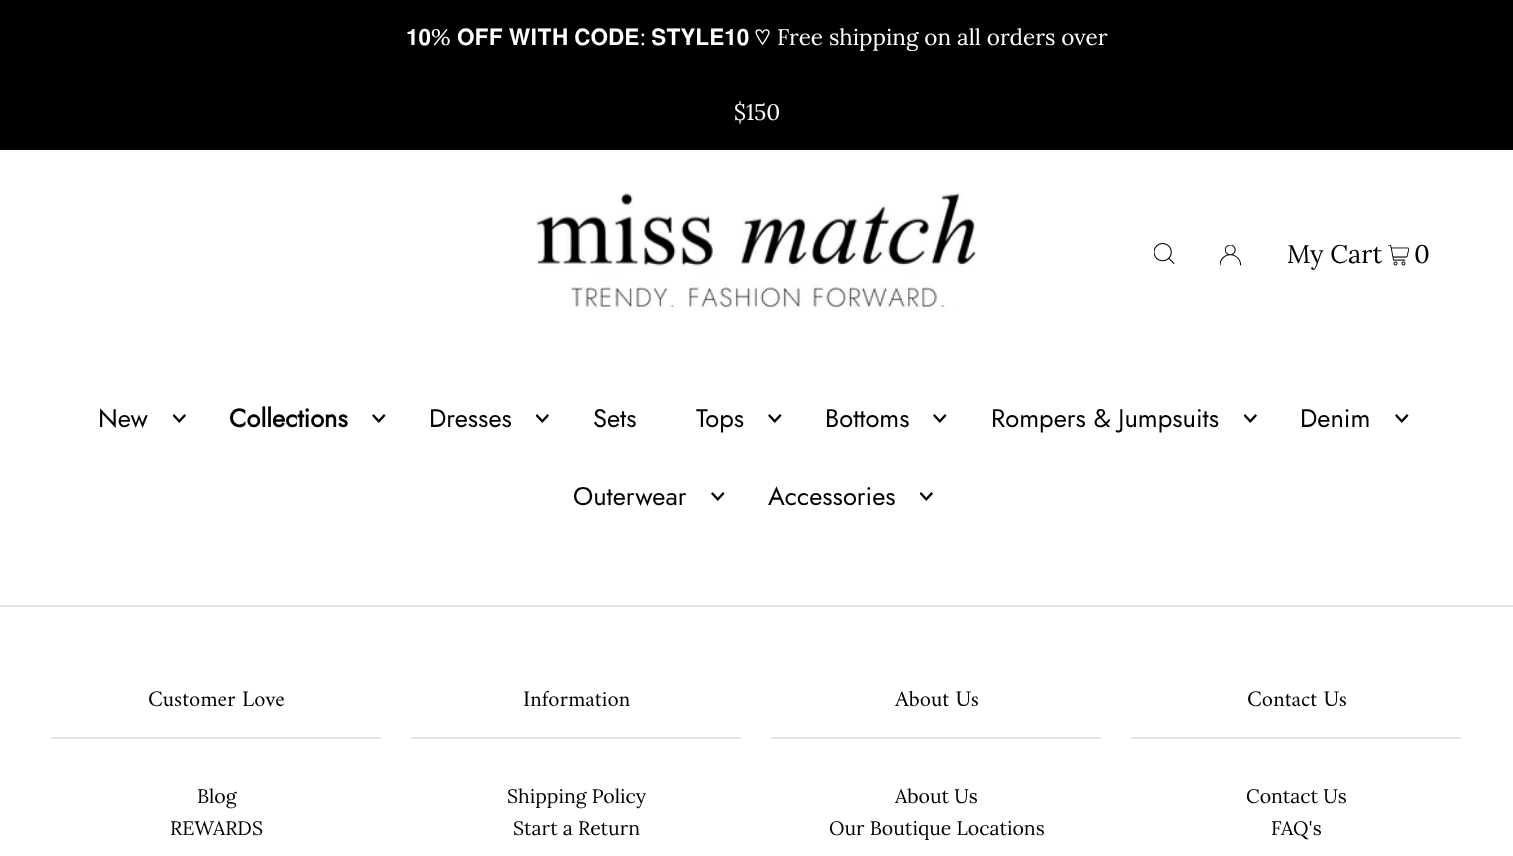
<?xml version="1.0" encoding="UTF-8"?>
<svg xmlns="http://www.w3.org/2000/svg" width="1513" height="856">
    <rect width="100%" height="100%" fill="#FFFFFF"/>
    <rect x="0" y="0" width="1513" height="150" fill="#000000"/>
    <text x="406" y="45" font-family="FreeSans" font-size="22.5" fill="#FFFFFF">𝟏𝟎</text>
    <text x="431" y="45" font-family="Lora" font-size="22.5" fill="#FFFFFF">%</text>
    <text x="457" y="45" font-family="FreeSans" font-size="22.5" fill="#FFFFFF">𝐎𝐅𝐅 𝐖𝐈𝐓𝐇 𝐂𝐎𝐃𝐄</text>
    <text x="640" y="45" font-family="Lora" font-size="22.5" fill="#FFFFFF">:</text>
    <text x="651" y="45" font-family="FreeSans" font-size="22.5" fill="#FFFFFF">𝐒𝐓𝐘𝐋𝐄𝟏𝟎 ♡</text>
    <text x="777" y="45" font-family="Lora" font-size="22.5" fill="#FFFFFF">Free shipping on all orders over</text>
    <text x="734" y="120" font-family="Lora" font-size="22.5" fill="#FFFFFF">$150</text>
    <image x="536" y="192" width="440" height="119" href="img_01.png"/>
    <image x="1154" y="243" width="21" height="21" href="img_02.png"/>
    <image x="1220" y="245" width="22" height="21" href="img_03.png"/>
    <text x="1287" y="263" font-family="Lora" font-size="25.5" fill="#000000">My Cart</text>
    <image x="1388" y="245" width="21" height="21" href="img_04.png"/>
    <text x="1414" y="263" font-family="Lora" font-size="25.5" fill="#000000">0</text>
    <text x="98" y="427" font-family="Jost" font-size="25.5" fill="#000000">New</text>
    <image x="173" y="414" width="13" height="9" href="img_05.png"/>
    <text x="229" y="427" font-family="Jost" font-size="25.5" font-weight="700" fill="#000000">Collections</text>
    <image x="372" y="414" width="14" height="9" href="img_06.png"/>
    <text x="429" y="427" font-family="Jost" font-size="25.5" fill="#000000">Dresses</text>
    <image x="536" y="414" width="13" height="9" href="img_05.png"/>
    <text x="593" y="427" font-family="Jost" font-size="25.5" fill="#000000">Sets</text>
    <text x="696" y="427" font-family="Jost" font-size="25.5" fill="#000000">Tops</text>
    <image x="768" y="414" width="14" height="9" href="img_06.png"/>
    <text x="825" y="427" font-family="Jost" font-size="25.5" fill="#000000">Bottoms</text>
    <image x="933" y="414" width="14" height="9" href="img_06.png"/>
    <text x="991" y="427" font-family="Jost" font-size="25.5" fill="#000000">Rompers &amp; Jumpsuits</text>
    <image x="1244" y="414" width="13" height="9" href="img_05.png"/>
    <text x="1300" y="427" font-family="Jost" font-size="25.5" fill="#000000">Denim</text>
    <image x="1395" y="414" width="14" height="9" href="img_06.png"/>
    <text x="573" y="505" font-family="Jost" font-size="25.5" fill="#000000">Outerwear</text>
    <image x="711" y="492" width="14" height="9" href="img_06.png"/>
    <text x="768" y="505" font-family="Jost" font-size="25.5" fill="#000000">Accessories</text>
    <image x="920" y="492" width="13" height="9" href="img_05.png"/>
    <rect x="0" y="605" width="1513" height="2" fill="#E5E5E5"/>
    <rect x="51" y="737" width="330" height="2" fill="#E5E5E5"/>
    <text x="148" y="706" font-family="Amiri" font-size="22.5" fill="#000000">Customer Love</text>
    <text x="197" y="803" font-family="Lora" font-size="19.5" fill="#000000">Blog</text>
    <text x="170" y="835" font-family="Lora" font-size="19.5" fill="#000000">REWARDS</text>
    <rect x="411" y="737" width="330" height="2" fill="#E5E5E5"/>
    <text x="523" y="706" font-family="Amiri" font-size="22.5" fill="#000000">Information</text>
    <text x="507" y="803" font-family="Lora" font-size="19.5" fill="#000000">Shipping Policy</text>
    <text x="513" y="835" font-family="Lora" font-size="19.5" fill="#000000">Start a Return</text>
    <rect x="771" y="737" width="330" height="2" fill="#E5E5E5"/>
    <text x="895" y="706" font-family="Amiri" font-size="22.5" fill="#000000">About Us</text>
    <text x="895" y="803" font-family="Lora" font-size="19.5" fill="#000000">About Us</text>
    <text x="829" y="835" font-family="Lora" font-size="19.5" fill="#000000">Our Boutique Locations</text>
    <rect x="1131" y="737" width="330" height="2" fill="#E5E5E5"/>
    <text x="1247" y="706" font-family="Amiri" font-size="22.5" fill="#000000">Contact Us</text>
    <text x="1246" y="803" font-family="Lora" font-size="19.5" fill="#000000">Contact Us</text>
    <text x="1271" y="835" font-family="Lora" font-size="19.5" fill="#000000">FAQ's</text>
</svg>
